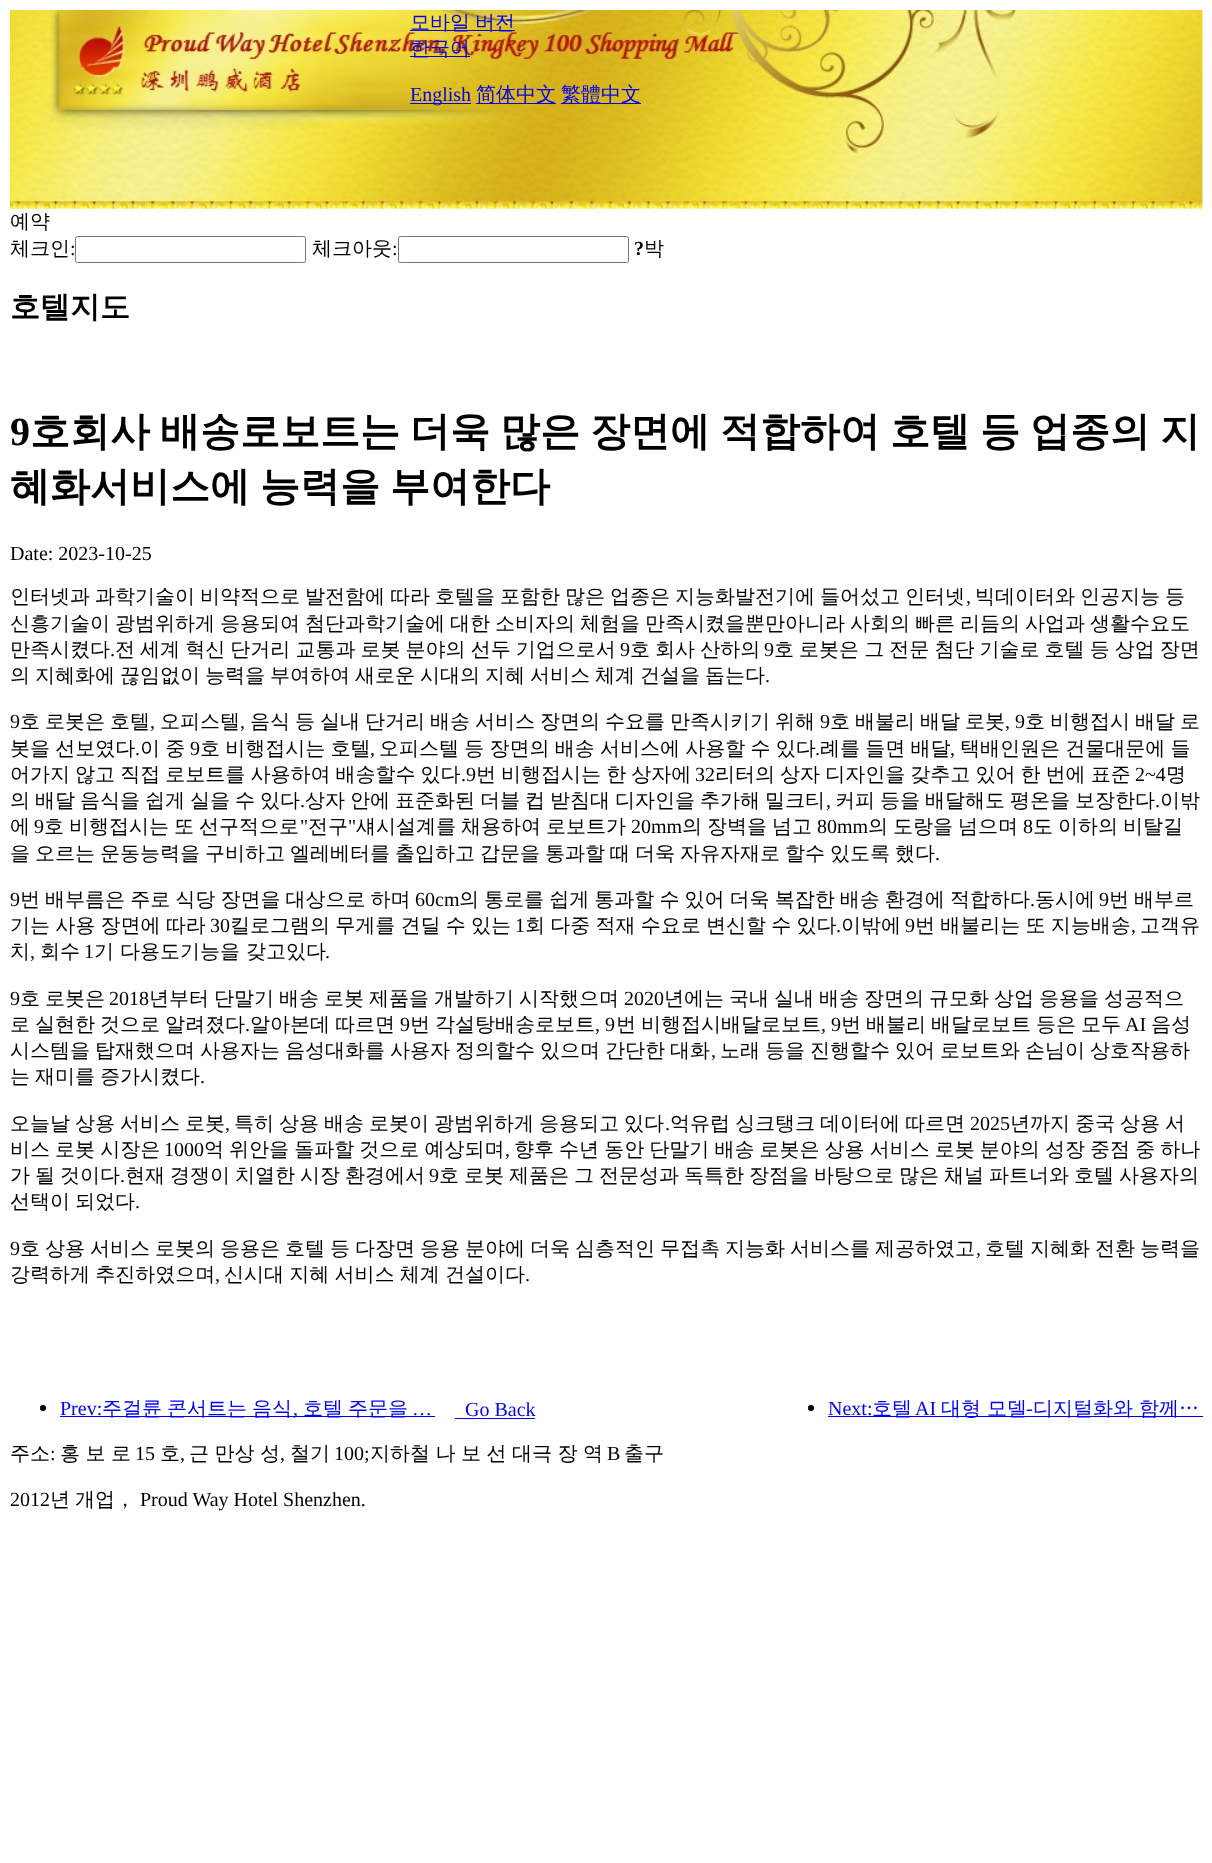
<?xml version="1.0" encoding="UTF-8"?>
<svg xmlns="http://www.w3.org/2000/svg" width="1212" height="1863">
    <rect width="100%" height="100%" fill="#FFFFFF"/>
    <image x="10" y="10" width="1193" height="199" href="img_01.png"/>
    <rect x="410" y="30" width="105" height="1" fill="#0000EE"/>
    <text x="410" y="29" word-spacing="-1" font-family="WenQuanYi Zen Hei" font-size="20" font-weight="500" fill="#0000EE">모바일 버전</text>
    <rect x="410" y="56" width="60" height="1" fill="#0000EE"/>
    <text x="410" y="55" font-family="WenQuanYi Zen Hei" font-size="20" font-weight="500" fill="#0000EE">한국어</text>
    <rect x="410" y="103" width="61" height="1" fill="#0000EE"/>
    <text x="410" y="101" font-family="Liberation Serif" font-size="20" fill="#0000EE">English</text>
    <rect x="476" y="103" width="80" height="1" fill="#0000EE"/>
    <text x="476" y="101" font-family="WenQuanYi Zen Hei" font-size="20" font-weight="500" fill="#0000EE">简体中文</text>
    <rect x="561" y="103" width="80" height="1" fill="#0000EE"/>
    <text x="561" y="101" font-family="WenQuanYi Zen Hei" font-size="20" font-weight="500" fill="#0000EE">繁體中文</text>
    <text font-family="WenQuanYi Zen Hei" font-size="20" font-weight="500" fill="#000000">
        <tspan x="10" y="228">예약</tspan>
        <tspan x="10" y="255">체크인</tspan>
    </text>
    <text x="70" y="255" font-family="Liberation Serif" font-size="20" fill="#000000">:</text>
    <rect x="75.5" y="236.5" width="230" height="26" rx="2" fill="none" stroke="#767676"/>
    <text x="312" y="255" font-family="WenQuanYi Zen Hei" font-size="20" font-weight="500" fill="#000000">체크아웃</text>
    <text x="392" y="255" font-family="Liberation Serif" font-size="20" fill="#000000">:</text>
    <rect x="398.5" y="236.5" width="230" height="26" rx="2" fill="none" stroke="#767676"/>
    <text x="634" y="255" font-family="Liberation Serif" font-size="20" font-weight="700" fill="#000000">?</text>
    <text x="644" y="255" font-family="WenQuanYi Zen Hei" font-size="20" font-weight="500" fill="#000000">박</text>
    <text x="10" y="317" font-family="WenQuanYi Zen Hei" font-size="30" font-weight="700" fill="#000000">호텔지도</text>
    <text x="10" y="445" font-family="Liberation Serif" font-size="40" font-weight="700" fill="#000000">9</text>
    <text x="30" y="445" word-spacing="-2" font-family="WenQuanYi Zen Hei" font-size="40" font-weight="700" fill="#000000">호회사 배송로보트는 더욱 많은 장면에 적합하여 호텔 등 업종의 지</text>
    <text x="10" y="500" word-spacing="-2" font-family="WenQuanYi Zen Hei" font-size="40" font-weight="700" fill="#000000">혜화서비스에 능력을 부여한다</text>
    <text x="10" y="560" font-family="Liberation Serif" font-size="20" fill="#000000">Date: 2023-10-25</text>
    <text x="10" y="603" word-spacing="-1" font-family="WenQuanYi Zen Hei" font-size="20" font-weight="500" fill="#000000">인터넷과 과학기술이 비약적으로 발전함에 따라 호텔을 포함한 많은 업종은 지능화발전기에 들어섰고 인터넷</text>
    <text x="966" y="603" font-family="Liberation Serif" font-size="20" fill="#000000">,</text>
    <text x="975" y="603" word-spacing="-1" font-family="WenQuanYi Zen Hei" font-size="20" font-weight="500" fill="#000000">빅데이터와 인공지능 등</text>
    <text font-family="WenQuanYi Zen Hei" font-size="20" font-weight="500" fill="#000000">
        <tspan x="10" y="630" word-spacing="-1">신흥기술이 광범위하게 응용되여 첨단과학기술에 대한 소비자의 체험을 만족시켰을뿐만아니라 사회의 빠른 리듬의 사업과 생활수요도</tspan>
        <tspan x="10" y="656">만족시켰다</tspan>
    </text>
    <text x="110" y="656" font-family="Liberation Serif" font-size="20" fill="#000000">.</text>
    <text x="115" y="656" word-spacing="-0.9" font-family="WenQuanYi Zen Hei" font-size="20" font-weight="500" fill="#000000">전 세계 혁신 단거리 교통과 로봇 분야의 선두 기업으로서</text>
    <text x="620" y="656" font-family="Liberation Serif" font-size="20" fill="#000000">9</text>
    <text x="630" y="656" word-spacing="-0.9" font-family="WenQuanYi Zen Hei" font-size="20" font-weight="500" fill="#000000">호 회사 산하의</text>
    <text x="764" y="656" font-family="Liberation Serif" font-size="20" fill="#000000">9</text>
    <text x="774" y="656" word-spacing="-0.9" font-family="WenQuanYi Zen Hei" font-size="20" font-weight="500" fill="#000000">호 로봇은 그 전문 첨단 기술로 호텔 등 상업 장면</text>
    <text x="10" y="682" word-spacing="-1" font-family="WenQuanYi Zen Hei" font-size="20" font-weight="500" fill="#000000">의 지혜화에 끊임없이 능력을 부여하여 새로운 시대의 지혜 서비스 체계 건설을 돕는다</text>
    <text x="765" y="682" font-family="Liberation Serif" font-size="20" fill="#000000">.</text>
    <text x="10" y="728" font-family="Liberation Serif" font-size="20" fill="#000000">9</text>
    <text x="20" y="728" font-family="WenQuanYi Zen Hei" font-size="20" font-weight="500" fill="#000000">호</text>
    <text x="45" y="728" font-family="WenQuanYi Zen Hei" font-size="20" font-weight="500" fill="#000000">로봇은</text>
    <text x="110" y="728" font-family="WenQuanYi Zen Hei" font-size="20" font-weight="500" fill="#000000">호텔</text>
    <text x="150" y="728" font-family="Liberation Serif" font-size="20" fill="#000000">,</text>
    <text x="160" y="728" font-family="WenQuanYi Zen Hei" font-size="20" font-weight="500" fill="#000000">오피스텔</text>
    <text x="240" y="728" font-family="Liberation Serif" font-size="20" fill="#000000">,</text>
    <text x="250" y="728" font-family="WenQuanYi Zen Hei" font-size="20" font-weight="500" fill="#000000">음식</text>
    <text x="295" y="728" font-family="WenQuanYi Zen Hei" font-size="20" font-weight="500" fill="#000000">등</text>
    <text x="320" y="728" font-family="WenQuanYi Zen Hei" font-size="20" font-weight="500" fill="#000000">실내</text>
    <text x="365" y="728" font-family="WenQuanYi Zen Hei" font-size="20" font-weight="500" fill="#000000">단거리</text>
    <text x="430" y="728" font-family="WenQuanYi Zen Hei" font-size="20" font-weight="500" fill="#000000">배송</text>
    <text x="475" y="728" font-family="WenQuanYi Zen Hei" font-size="20" font-weight="500" fill="#000000">서비스</text>
    <text x="540" y="728" font-family="WenQuanYi Zen Hei" font-size="20" font-weight="500" fill="#000000">장면의</text>
    <text x="605" y="728" font-family="WenQuanYi Zen Hei" font-size="20" font-weight="500" fill="#000000">수요를</text>
    <text x="670" y="728" font-family="WenQuanYi Zen Hei" font-size="20" font-weight="500" fill="#000000">만족시키기</text>
    <text x="775" y="728" font-family="WenQuanYi Zen Hei" font-size="20" font-weight="500" fill="#000000">위해</text>
    <text x="820" y="728" font-family="Liberation Serif" font-size="20" fill="#000000">9</text>
    <text x="830" y="728" font-family="WenQuanYi Zen Hei" font-size="20" font-weight="500" fill="#000000">호</text>
    <text x="855" y="728" font-family="WenQuanYi Zen Hei" font-size="20" font-weight="500" fill="#000000">배불리</text>
    <text x="920" y="728" font-family="WenQuanYi Zen Hei" font-size="20" font-weight="500" fill="#000000">배달</text>
    <text x="965" y="728" font-family="WenQuanYi Zen Hei" font-size="20" font-weight="500" fill="#000000">로봇</text>
    <text x="1005" y="728" font-family="Liberation Serif" font-size="20" fill="#000000">, 9</text>
    <text x="1025" y="728" font-family="WenQuanYi Zen Hei" font-size="20" font-weight="500" fill="#000000">호</text>
    <text x="1050" y="728" font-family="WenQuanYi Zen Hei" font-size="20" font-weight="500" fill="#000000">비행접시</text>
    <text x="1135" y="728" font-family="WenQuanYi Zen Hei" font-size="20" font-weight="500" fill="#000000">배달</text>
    <text x="1180" y="728" font-family="WenQuanYi Zen Hei" font-size="20" font-weight="500" fill="#000000">로</text>
    <text x="10" y="755" word-spacing="-0.75" font-family="WenQuanYi Zen Hei" font-size="20" font-weight="500" fill="#000000">봇을 선보였다</text>
    <text x="135" y="755" font-family="Liberation Serif" font-size="20" fill="#000000">.</text>
    <text x="140" y="755" word-spacing="-0.75" font-family="WenQuanYi Zen Hei" font-size="20" font-weight="500" fill="#000000">이 중</text>
    <text x="190" y="755" font-family="Liberation Serif" font-size="20" fill="#000000">9</text>
    <text x="200" y="755" word-spacing="-0.75" font-family="WenQuanYi Zen Hei" font-size="20" font-weight="500" fill="#000000">호 비행접시는 호텔</text>
    <text x="370" y="755" font-family="Liberation Serif" font-size="20" fill="#000000">,</text>
    <text x="379" y="755" word-spacing="-0.75" font-family="WenQuanYi Zen Hei" font-size="20" font-weight="500" fill="#000000">오피스텔 등 장면의 배송 서비스에 사용할 수 있다</text>
    <text x="815" y="755" font-family="Liberation Serif" font-size="20" fill="#000000">.</text>
    <text x="820" y="755" word-spacing="-0.75" font-family="WenQuanYi Zen Hei" font-size="20" font-weight="500" fill="#000000">례를 들면 배달</text>
    <text x="950" y="755" font-family="Liberation Serif" font-size="20" fill="#000000">,</text>
    <text x="960" y="755" word-spacing="-0.75" font-family="WenQuanYi Zen Hei" font-size="20" font-weight="500" fill="#000000">택배인원은 건물대문에 들</text>
    <text x="10" y="781" word-spacing="-0.9" font-family="WenQuanYi Zen Hei" font-size="20" font-weight="500" fill="#000000">어가지 않고 직접 로보트를 사용하여 배송할수 있다</text>
    <text x="461" y="781" font-family="Liberation Serif" font-size="20" fill="#000000">.9</text>
    <text x="476" y="781" word-spacing="-0.9" font-family="WenQuanYi Zen Hei" font-size="20" font-weight="500" fill="#000000">번 비행접시는 한 상자에</text>
    <text x="695" y="781" font-family="Liberation Serif" font-size="20" fill="#000000">32</text>
    <text x="715" y="781" word-spacing="-0.9" font-family="WenQuanYi Zen Hei" font-size="20" font-weight="500" fill="#000000">리터의 상자 디자인을 갖추고 있어 한 번에 표준</text>
    <text x="1135" y="781" font-family="Liberation Serif" font-size="20" fill="#000000">2~4</text>
    <text x="1166" y="781" font-family="WenQuanYi Zen Hei" font-size="20" font-weight="500" fill="#000000">명</text>
    <text x="10" y="807" word-spacing="-1" font-family="WenQuanYi Zen Hei" font-size="20" font-weight="500" fill="#000000">의 배달 음식을 쉽게 실을 수 있다</text>
    <text x="300" y="807" font-family="Liberation Serif" font-size="20" fill="#000000">.</text>
    <text x="305" y="807" word-spacing="-1" font-family="WenQuanYi Zen Hei" font-size="20" font-weight="500" fill="#000000">상자 안에 표준화된 더블 컵 받침대 디자인을 추가해 밀크티</text>
    <text x="826" y="807" font-family="Liberation Serif" font-size="20" fill="#000000">,</text>
    <text x="835" y="807" word-spacing="-1" font-family="WenQuanYi Zen Hei" font-size="20" font-weight="500" fill="#000000">커피 등을 배달해도 평온을 보장한다</text>
    <text x="1155" y="807" font-family="Liberation Serif" font-size="20" fill="#000000">.</text>
    <text x="1160" y="807" font-family="WenQuanYi Zen Hei" font-size="20" font-weight="500" fill="#000000">이밖</text>
    <text x="10" y="833" font-family="WenQuanYi Zen Hei" font-size="20" font-weight="500" fill="#000000">에</text>
    <text x="34" y="833" font-family="Liberation Serif" font-size="20" fill="#000000">9</text>
    <text x="44" y="833" word-spacing="-1" font-family="WenQuanYi Zen Hei" font-size="20" font-weight="500" fill="#000000">호 비행접시는 또 선구적으로</text>
    <text x="300" y="833" font-family="Liberation Serif" font-size="20" fill="#000000">"</text>
    <text x="308" y="833" font-family="WenQuanYi Zen Hei" font-size="20" font-weight="500" fill="#000000">전구</text>
    <text x="348" y="833" font-family="Liberation Serif" font-size="20" fill="#000000">"</text>
    <text x="356" y="833" word-spacing="-1" font-family="WenQuanYi Zen Hei" font-size="20" font-weight="500" fill="#000000">섀시설계를 채용하여 로보트가</text>
    <text x="631" y="833" font-family="Liberation Serif" font-size="20" fill="#000000">20mm</text>
    <text x="682" y="833" word-spacing="-1" font-family="WenQuanYi Zen Hei" font-size="20" font-weight="500" fill="#000000">의 장벽을 넘고</text>
    <text x="817" y="833" font-family="Liberation Serif" font-size="20" fill="#000000">80mm</text>
    <text x="868" y="833" word-spacing="-1" font-family="WenQuanYi Zen Hei" font-size="20" font-weight="500" fill="#000000">의 도랑을 넘으며</text>
    <text x="1023" y="833" font-family="Liberation Serif" font-size="20" fill="#000000">8</text>
    <text x="1033" y="833" word-spacing="-1" font-family="WenQuanYi Zen Hei" font-size="20" font-weight="500" fill="#000000">도 이하의 비탈길</text>
    <text x="10" y="860" word-spacing="-1" font-family="WenQuanYi Zen Hei" font-size="20" font-weight="500" fill="#000000">을 오르는 운동능력을 구비하고 엘레베터를 출입하고 갑문을 통과할 때 더욱 자유자재로 할수 있도록 했다</text>
    <text x="935" y="860" font-family="Liberation Serif" font-size="20" fill="#000000">.</text>
    <text x="10" y="906" font-family="Liberation Serif" font-size="20" fill="#000000">9</text>
    <text x="20" y="906" word-spacing="-0.9" font-family="WenQuanYi Zen Hei" font-size="20" font-weight="500" fill="#000000">번 배부름은 주로 식당 장면을 대상으로 하며</text>
    <text x="415" y="906" font-family="Liberation Serif" font-size="20" fill="#000000">60cm</text>
    <text x="459" y="906" word-spacing="-0.9" font-family="WenQuanYi Zen Hei" font-size="20" font-weight="500" fill="#000000">의 통로를 쉽게 통과할 수 있어 더욱 복잡한 배송 환경에 적합하다</text>
    <text x="1030" y="906" font-family="Liberation Serif" font-size="20" fill="#000000">.</text>
    <text x="1035" y="906" font-family="WenQuanYi Zen Hei" font-size="20" font-weight="500" fill="#000000">동시에</text>
    <text x="1099" y="906" font-family="Liberation Serif" font-size="20" fill="#000000">9</text>
    <text x="1109" y="906" word-spacing="-0.9" font-family="WenQuanYi Zen Hei" font-size="20" font-weight="500" fill="#000000">번 배부르</text>
    <text x="10" y="932" word-spacing="-0.75" font-family="WenQuanYi Zen Hei" font-size="20" font-weight="500" fill="#000000">기는 사용 장면에 따라</text>
    <text x="210" y="932" font-family="Liberation Serif" font-size="20" fill="#000000">30</text>
    <text x="230" y="932" word-spacing="-0.75" font-family="WenQuanYi Zen Hei" font-size="20" font-weight="500" fill="#000000">킬로그램의 무게를 견딜 수 있는</text>
    <text x="515" y="932" font-family="Liberation Serif" font-size="20" fill="#000000">1</text>
    <text x="525" y="932" word-spacing="-0.75" font-family="WenQuanYi Zen Hei" font-size="20" font-weight="500" fill="#000000">회 다중 적재 수요로 변신할 수 있다</text>
    <text x="836" y="932" font-family="Liberation Serif" font-size="20" fill="#000000">.</text>
    <text x="841" y="932" font-family="WenQuanYi Zen Hei" font-size="20" font-weight="500" fill="#000000">이밖에</text>
    <text x="905" y="932" font-family="Liberation Serif" font-size="20" fill="#000000">9</text>
    <text x="915" y="932" word-spacing="-0.75" font-family="WenQuanYi Zen Hei" font-size="20" font-weight="500" fill="#000000">번 배불리는 또 지능배송</text>
    <text x="1131" y="932" font-family="Liberation Serif" font-size="20" fill="#000000">,</text>
    <text x="1140" y="932" font-family="WenQuanYi Zen Hei" font-size="20" font-weight="500" fill="#000000">고객유</text>
    <text x="10" y="958" font-family="WenQuanYi Zen Hei" font-size="20" font-weight="500" fill="#000000">치</text>
    <text x="30" y="958" font-family="Liberation Serif" font-size="20" fill="#000000">,</text>
    <text x="40" y="958" font-family="WenQuanYi Zen Hei" font-size="20" font-weight="500" fill="#000000">회수</text>
    <text x="84" y="958" font-family="Liberation Serif" font-size="20" fill="#000000">1</text>
    <text x="94" y="958" font-family="WenQuanYi Zen Hei" font-size="20" font-weight="500" fill="#000000">기 다용도기능을 갖고있다</text>
    <text x="325" y="958" font-family="Liberation Serif" font-size="20" fill="#000000">.</text>
    <text x="10" y="1005" font-family="Liberation Serif" font-size="20" fill="#000000">9</text>
    <text x="20" y="1005" word-spacing="-1" font-family="WenQuanYi Zen Hei" font-size="20" font-weight="500" fill="#000000">호 로봇은</text>
    <text x="109" y="1005" font-family="Liberation Serif" font-size="20" fill="#000000">2018</text>
    <text x="149" y="1005" word-spacing="-1" font-family="WenQuanYi Zen Hei" font-size="20" font-weight="500" fill="#000000">년부터 단말기 배송 로봇 제품을 개발하기 시작했으며</text>
    <text x="624" y="1005" font-family="Liberation Serif" font-size="20" fill="#000000">2020</text>
    <text x="664" y="1005" word-spacing="-1" font-family="WenQuanYi Zen Hei" font-size="20" font-weight="500" fill="#000000">년에는 국내 실내 배송 장면의 규모화 상업 응용을 성공적으</text>
    <text x="10" y="1031" font-family="WenQuanYi Zen Hei" font-size="20" font-weight="500" fill="#000000">로</text>
    <text x="35" y="1031" font-family="WenQuanYi Zen Hei" font-size="20" font-weight="500" fill="#000000">실현한</text>
    <text x="100" y="1031" font-family="WenQuanYi Zen Hei" font-size="20" font-weight="500" fill="#000000">것으로</text>
    <text x="165" y="1031" font-family="WenQuanYi Zen Hei" font-size="20" font-weight="500" fill="#000000">알려졌다</text>
    <text x="245" y="1031" font-family="Liberation Serif" font-size="20" fill="#000000">.</text>
    <text x="250" y="1031" font-family="WenQuanYi Zen Hei" font-size="20" font-weight="500" fill="#000000">알아본데</text>
    <text x="335" y="1031" font-family="WenQuanYi Zen Hei" font-size="20" font-weight="500" fill="#000000">따르면</text>
    <text x="400" y="1031" font-family="Liberation Serif" font-size="20" fill="#000000">9</text>
    <text x="410" y="1031" font-family="WenQuanYi Zen Hei" font-size="20" font-weight="500" fill="#000000">번</text>
    <text x="435" y="1031" font-family="WenQuanYi Zen Hei" font-size="20" font-weight="500" fill="#000000">각설탕배송로보트</text>
    <text x="595" y="1031" font-family="Liberation Serif" font-size="20" fill="#000000">, 9</text>
    <text x="616" y="1031" font-family="WenQuanYi Zen Hei" font-size="20" font-weight="500" fill="#000000">번</text>
    <text x="641" y="1031" font-family="WenQuanYi Zen Hei" font-size="20" font-weight="500" fill="#000000">비행접시배달로보트</text>
    <text x="821" y="1031" font-family="Liberation Serif" font-size="20" fill="#000000">, 9</text>
    <text x="841" y="1031" font-family="WenQuanYi Zen Hei" font-size="20" font-weight="500" fill="#000000">번</text>
    <text x="866" y="1031" font-family="WenQuanYi Zen Hei" font-size="20" font-weight="500" fill="#000000">배불리</text>
    <text x="931" y="1031" font-family="WenQuanYi Zen Hei" font-size="20" font-weight="500" fill="#000000">배달로보트</text>
    <text x="1036" y="1031" font-family="WenQuanYi Zen Hei" font-size="20" font-weight="500" fill="#000000">등은</text>
    <text x="1081" y="1031" font-family="WenQuanYi Zen Hei" font-size="20" font-weight="500" fill="#000000">모두</text>
    <text x="1125" y="1031" font-family="Liberation Serif" font-size="20" fill="#000000">AI</text>
    <text x="1151" y="1031" font-family="WenQuanYi Zen Hei" font-size="20" font-weight="500" fill="#000000">음성</text>
    <text x="10" y="1057" word-spacing="-1" font-family="WenQuanYi Zen Hei" font-size="20" font-weight="500" fill="#000000">시스템을 탑재했으며 사용자는 음성대화를 사용자 정의할수 있으며 간단한 대화</text>
    <text x="711" y="1057" font-family="Liberation Serif" font-size="20" fill="#000000">,</text>
    <text x="720" y="1057" word-spacing="-1" font-family="WenQuanYi Zen Hei" font-size="20" font-weight="500" fill="#000000">노래 등을 진행할수 있어 로보트와 손님이 상호작용하</text>
    <text x="10" y="1083" word-spacing="-1" font-family="WenQuanYi Zen Hei" font-size="20" font-weight="500" fill="#000000">는 재미를 증가시켰다</text>
    <text x="200" y="1083" font-family="Liberation Serif" font-size="20" fill="#000000">.</text>
    <text x="10" y="1130" word-spacing="-1" font-family="WenQuanYi Zen Hei" font-size="20" font-weight="500" fill="#000000">오늘날 상용 서비스 로봇</text>
    <text x="225" y="1130" font-family="Liberation Serif" font-size="20" fill="#000000">,</text>
    <text x="234" y="1130" word-spacing="-1" font-family="WenQuanYi Zen Hei" font-size="20" font-weight="500" fill="#000000">특히 상용 배송 로봇이 광범위하게 응용되고 있다</text>
    <text x="665" y="1130" font-family="Liberation Serif" font-size="20" fill="#000000">.</text>
    <text x="670" y="1130" word-spacing="-1" font-family="WenQuanYi Zen Hei" font-size="20" font-weight="500" fill="#000000">억유럽 싱크탱크 데이터에 따르면</text>
    <text x="970" y="1130" font-family="Liberation Serif" font-size="20" fill="#000000">2025</text>
    <text x="1010" y="1130" word-spacing="-1" font-family="WenQuanYi Zen Hei" font-size="20" font-weight="500" fill="#000000">년까지 중국 상용 서</text>
    <text x="10" y="1156" word-spacing="-0.9" font-family="WenQuanYi Zen Hei" font-size="20" font-weight="500" fill="#000000">비스 로봇 시장은</text>
    <text x="164" y="1156" font-family="Liberation Serif" font-size="20" fill="#000000">1000</text>
    <text x="204" y="1156" word-spacing="-0.9" font-family="WenQuanYi Zen Hei" font-size="20" font-weight="500" fill="#000000">억 위안을 돌파할 것으로 예상되며</text>
    <text x="505" y="1156" font-family="Liberation Serif" font-size="20" fill="#000000">,</text>
    <text x="514" y="1156" word-spacing="-0.9" font-family="WenQuanYi Zen Hei" font-size="20" font-weight="500" fill="#000000">향후 수년 동안 단말기 배송 로봇은 상용 서비스 로봇 분야의 성장 중점 중 하나</text>
    <text x="10" y="1182" word-spacing="-1" font-family="WenQuanYi Zen Hei" font-size="20" font-weight="500" fill="#000000">가 될 것이다</text>
    <text x="120" y="1182" font-family="Liberation Serif" font-size="20" fill="#000000">.</text>
    <text x="125" y="1182" word-spacing="-1" font-family="WenQuanYi Zen Hei" font-size="20" font-weight="500" fill="#000000">현재 경쟁이 치열한 시장 환경에서</text>
    <text x="429" y="1182" font-family="Liberation Serif" font-size="20" fill="#000000">9</text>
    <text x="439" y="1182" word-spacing="-1" font-family="WenQuanYi Zen Hei" font-size="20" font-weight="500" fill="#000000">호 로봇 제품은 그 전문성과 독특한 장점을 바탕으로 많은 채널 파트너와 호텔 사용자의</text>
    <text x="10" y="1208" word-spacing="-1" font-family="WenQuanYi Zen Hei" font-size="20" font-weight="500" fill="#000000">선택이 되었다</text>
    <text x="135" y="1208" font-family="Liberation Serif" font-size="20" fill="#000000">.</text>
    <text x="10" y="1255" font-family="Liberation Serif" font-size="20" fill="#000000">9</text>
    <text x="20" y="1255" word-spacing="-1" font-family="WenQuanYi Zen Hei" font-size="20" font-weight="500" fill="#000000">호 상용 서비스 로봇의 응용은 호텔 등 다장면 응용 분야에 더욱 심층적인 무접촉 지능화 서비스를 제공하였고</text>
    <text x="976" y="1255" font-family="Liberation Serif" font-size="20" fill="#000000">,</text>
    <text x="985" y="1255" word-spacing="-1" font-family="WenQuanYi Zen Hei" font-size="20" font-weight="500" fill="#000000">호텔 지혜화 전환 능력을</text>
    <text x="10" y="1281" word-spacing="-0.75" font-family="WenQuanYi Zen Hei" font-size="20" font-weight="500" fill="#000000">강력하게 추진하였으며</text>
    <text x="215" y="1281" font-family="Liberation Serif" font-size="20" fill="#000000">,</text>
    <text x="224" y="1281" word-spacing="-0.75" font-family="WenQuanYi Zen Hei" font-size="20" font-weight="500" fill="#000000">신시대 지혜 서비스 체계 건설이다</text>
    <text x="525" y="1281" font-family="Liberation Serif" font-size="20" fill="#000000">.</text>
    <circle cx="43" cy="1408" r="3" fill="#000000"/>
    <text x="60" y="1415" font-family="Liberation Serif" font-size="20" fill="#0000EE">Prev:</text>
    <rect x="60" y="1416" width="375" height="1" fill="#0000EE"/>
    <text x="102" y="1415" word-spacing="-1" font-family="WenQuanYi Zen Hei" font-size="20" font-weight="500" fill="#0000EE">주걸륜 콘서트는 음식</text>
    <text x="293" y="1415" font-family="Liberation Serif" font-size="20" fill="#0000EE">,</text>
    <text x="303" y="1415" word-spacing="-1" font-family="WenQuanYi Zen Hei" font-size="20" font-weight="500" fill="#0000EE">호텔 주문을</text>
    <text x="412" y="1415" font-family="Liberation Serif" font-size="20" fill="#0000EE">…</text>
    <circle cx="811" cy="1408" r="3" fill="#000000"/>
    <text x="828" y="1415" font-family="Liberation Serif" font-size="20" fill="#0000EE">Next:</text>
    <rect x="828" y="1416" width="375" height="1" fill="#0000EE"/>
    <text x="872" y="1415" font-family="WenQuanYi Zen Hei" font-size="20" font-weight="500" fill="#0000EE">호텔</text>
    <text x="915" y="1415" font-family="Liberation Serif" font-size="20" fill="#0000EE">AI</text>
    <text x="941" y="1415" font-family="WenQuanYi Zen Hei" font-size="20" font-weight="500" fill="#0000EE">대형 모델</text>
    <text x="1026" y="1415" font-family="Liberation Serif" font-size="20" fill="#0000EE">-</text>
    <text x="1033" y="1415" font-family="WenQuanYi Zen Hei" font-size="20" font-weight="500" fill="#0000EE">디지털화와 함께…</text>
    <text x="465" y="1416" font-family="Liberation Serif" font-size="20" fill="#0000EE">Go Back</text>
    <rect x="455" y="1418" width="80" height="1" fill="#0000EE"/>
    <text x="10" y="1460" font-family="WenQuanYi Zen Hei" font-size="20" font-weight="500" fill="#000000">주소</text>
    <text x="50" y="1460" font-family="Liberation Serif" font-size="20" fill="#000000">:</text>
    <text x="60" y="1460" word-spacing="-0.5" font-family="WenQuanYi Zen Hei" font-size="20" font-weight="500" fill="#000000">홍 보 로</text>
    <text x="135" y="1460" font-family="Liberation Serif" font-size="20" fill="#000000">15</text>
    <text x="160" y="1460" font-family="WenQuanYi Zen Hei" font-size="20" font-weight="500" fill="#000000">호</text>
    <text x="180" y="1460" font-family="Liberation Serif" font-size="20" fill="#000000">,</text>
    <text x="189" y="1460" word-spacing="-0.5" font-family="WenQuanYi Zen Hei" font-size="20" font-weight="500" fill="#000000">근 만상 성</text>
    <text x="280" y="1460" font-family="Liberation Serif" font-size="20" fill="#000000">,</text>
    <text x="290" y="1460" font-family="WenQuanYi Zen Hei" font-size="20" font-weight="500" fill="#000000">철기</text>
    <text x="334" y="1460" font-family="Liberation Serif" font-size="20" fill="#000000">100;</text>
    <text x="370" y="1460" word-spacing="-0.5" font-family="WenQuanYi Zen Hei" font-size="20" font-weight="500" fill="#000000">지하철 나 보 선 대극 장 역</text>
    <text x="607" y="1460" font-family="Liberation Serif" font-size="20" fill="#000000">B</text>
    <text x="624" y="1460" font-family="WenQuanYi Zen Hei" font-size="20" font-weight="500" fill="#000000">출구</text>
    <text x="10" y="1506" font-family="Liberation Serif" font-size="20" fill="#000000">2012</text>
    <text x="50" y="1506" font-family="WenQuanYi Zen Hei" font-size="20" font-weight="500" fill="#000000">년</text>
    <text x="75" y="1506" font-family="WenQuanYi Zen Hei" font-size="20" font-weight="500" fill="#000000">개업，</text>
    <text x="140" y="1506" font-family="Liberation Serif" font-size="20" fill="#000000">Proud Way Hotel Shenzhen.</text>
</svg>
